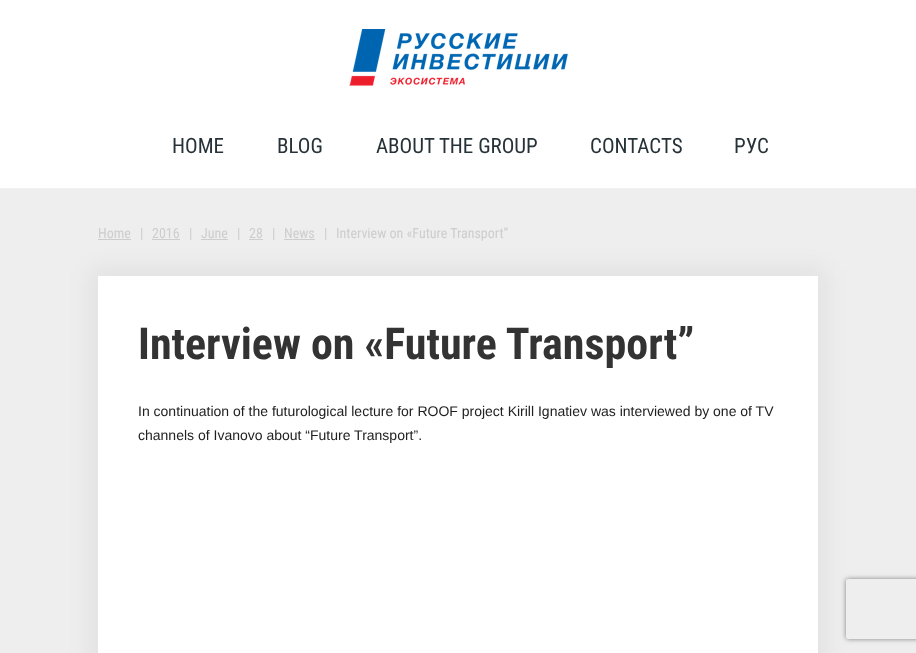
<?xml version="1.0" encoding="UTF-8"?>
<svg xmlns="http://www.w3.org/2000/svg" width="916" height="653">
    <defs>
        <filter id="blur1" x="-50%" y="-200%" width="200%" height="500%"><feGaussianBlur stdDeviation="12"/></filter>
        <clipPath id="clip1"><path d="M 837 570 H 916 V 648 H 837 Z M 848 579 H 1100 C 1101 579 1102 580 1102 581 V 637 C 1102 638 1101 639 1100 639 H 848 C 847 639 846 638 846 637 V 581 C 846 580 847 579 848 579 Z" clip-rule="evenodd"/></clipPath>
        <filter id="blur2" x="-50%" y="-200%" width="200%" height="500%"><feGaussianBlur stdDeviation="2.5"/></filter>
    </defs>
    <rect width="100%" height="100%" fill="#EEEEEE"/>
    <rect x="0" y="0" width="916" height="188" fill="#FFFFFF"/>
    <rect x="0" y="188" width="916" height="1" fill="#F1F1F1"/>
    <image x="349" y="29" width="219" height="57" href="img_01.png"/>
    <text x="172" y="153" font-family="Roboto Condensed" font-size="21" fill="#263238">HOME</text>
    <text x="277" y="153" font-family="Roboto Condensed" font-size="21" fill="#263238">BLOG</text>
    <text x="376" y="153" font-family="Roboto Condensed" font-size="21" fill="#263238">ABOUT THE GROUP</text>
    <text x="590" y="153" font-family="Roboto Condensed" font-size="21" fill="#263238">CONTACTS</text>
    <text x="734" y="153" font-family="Roboto Condensed" font-size="21" fill="#263238">РУС</text>
    <rect x="91" y="269" width="734" height="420" fill="#000000" fill-opacity="0.06" filter="url(#blur1)"/>
    <text x="98" y="238" font-family="Roboto Condensed" font-size="14" fill="#CDCDCD">Home</text>
    <rect x="98" y="239" width="33" height="1" fill="#CDCDCD"/>
    <text x="140" y="238" font-family="Roboto Condensed" font-size="14" fill="#CDCDCD">|</text>
    <text x="152" y="238" font-family="Roboto Condensed" font-size="14" fill="#CDCDCD">2016</text>
    <rect x="152" y="239" width="28" height="1" fill="#CDCDCD"/>
    <text x="189" y="238" font-family="Roboto Condensed" font-size="14" fill="#CDCDCD">|</text>
    <text x="201" y="238" font-family="Roboto Condensed" font-size="14" fill="#CDCDCD">June</text>
    <rect x="201" y="239" width="27" height="1" fill="#CDCDCD"/>
    <text x="237" y="238" font-family="Roboto Condensed" font-size="14" fill="#CDCDCD">|</text>
    <text x="249" y="238" font-family="Roboto Condensed" font-size="14" fill="#CDCDCD">28</text>
    <rect x="249" y="239" width="14" height="1" fill="#CDCDCD"/>
    <text x="272" y="238" font-family="Roboto Condensed" font-size="14" fill="#CDCDCD">|</text>
    <text x="284" y="238" font-family="Roboto Condensed" font-size="14" fill="#CDCDCD">News</text>
    <rect x="284" y="239" width="31" height="1" fill="#CDCDCD"/>
    <text x="324" y="238" font-family="Roboto Condensed" font-size="14" fill="#CDCDCD">|</text>
    <text x="336" y="238" font-family="Roboto Condensed" font-size="14" fill="#CDCDCD">Interview on «Future Transport”</text>
    <rect x="98" y="276" width="720" height="377" fill="#FFFFFF"/>
    <text x="138" y="359" font-family="Roboto Condensed" font-size="44" font-weight="700" fill="#333333">Interview on «Future Transport”</text>
    <text font-family="Liberation Sans" font-size="14" fill="#212121">
        <tspan x="138" y="416">In continuation of the futurological lecture for ROOF project Kirill Ignatiev was interviewed by one of TV</tspan>
        <tspan x="138" y="440">channels of Ivanovo about “Future Transport”.</tspan>
    </text>
    <g clip-path="url(#clip1)">
        <rect x="846" y="579" width="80" height="60" rx="2" fill="#808080" filter="url(#blur2)"/>
    </g>
</svg>
